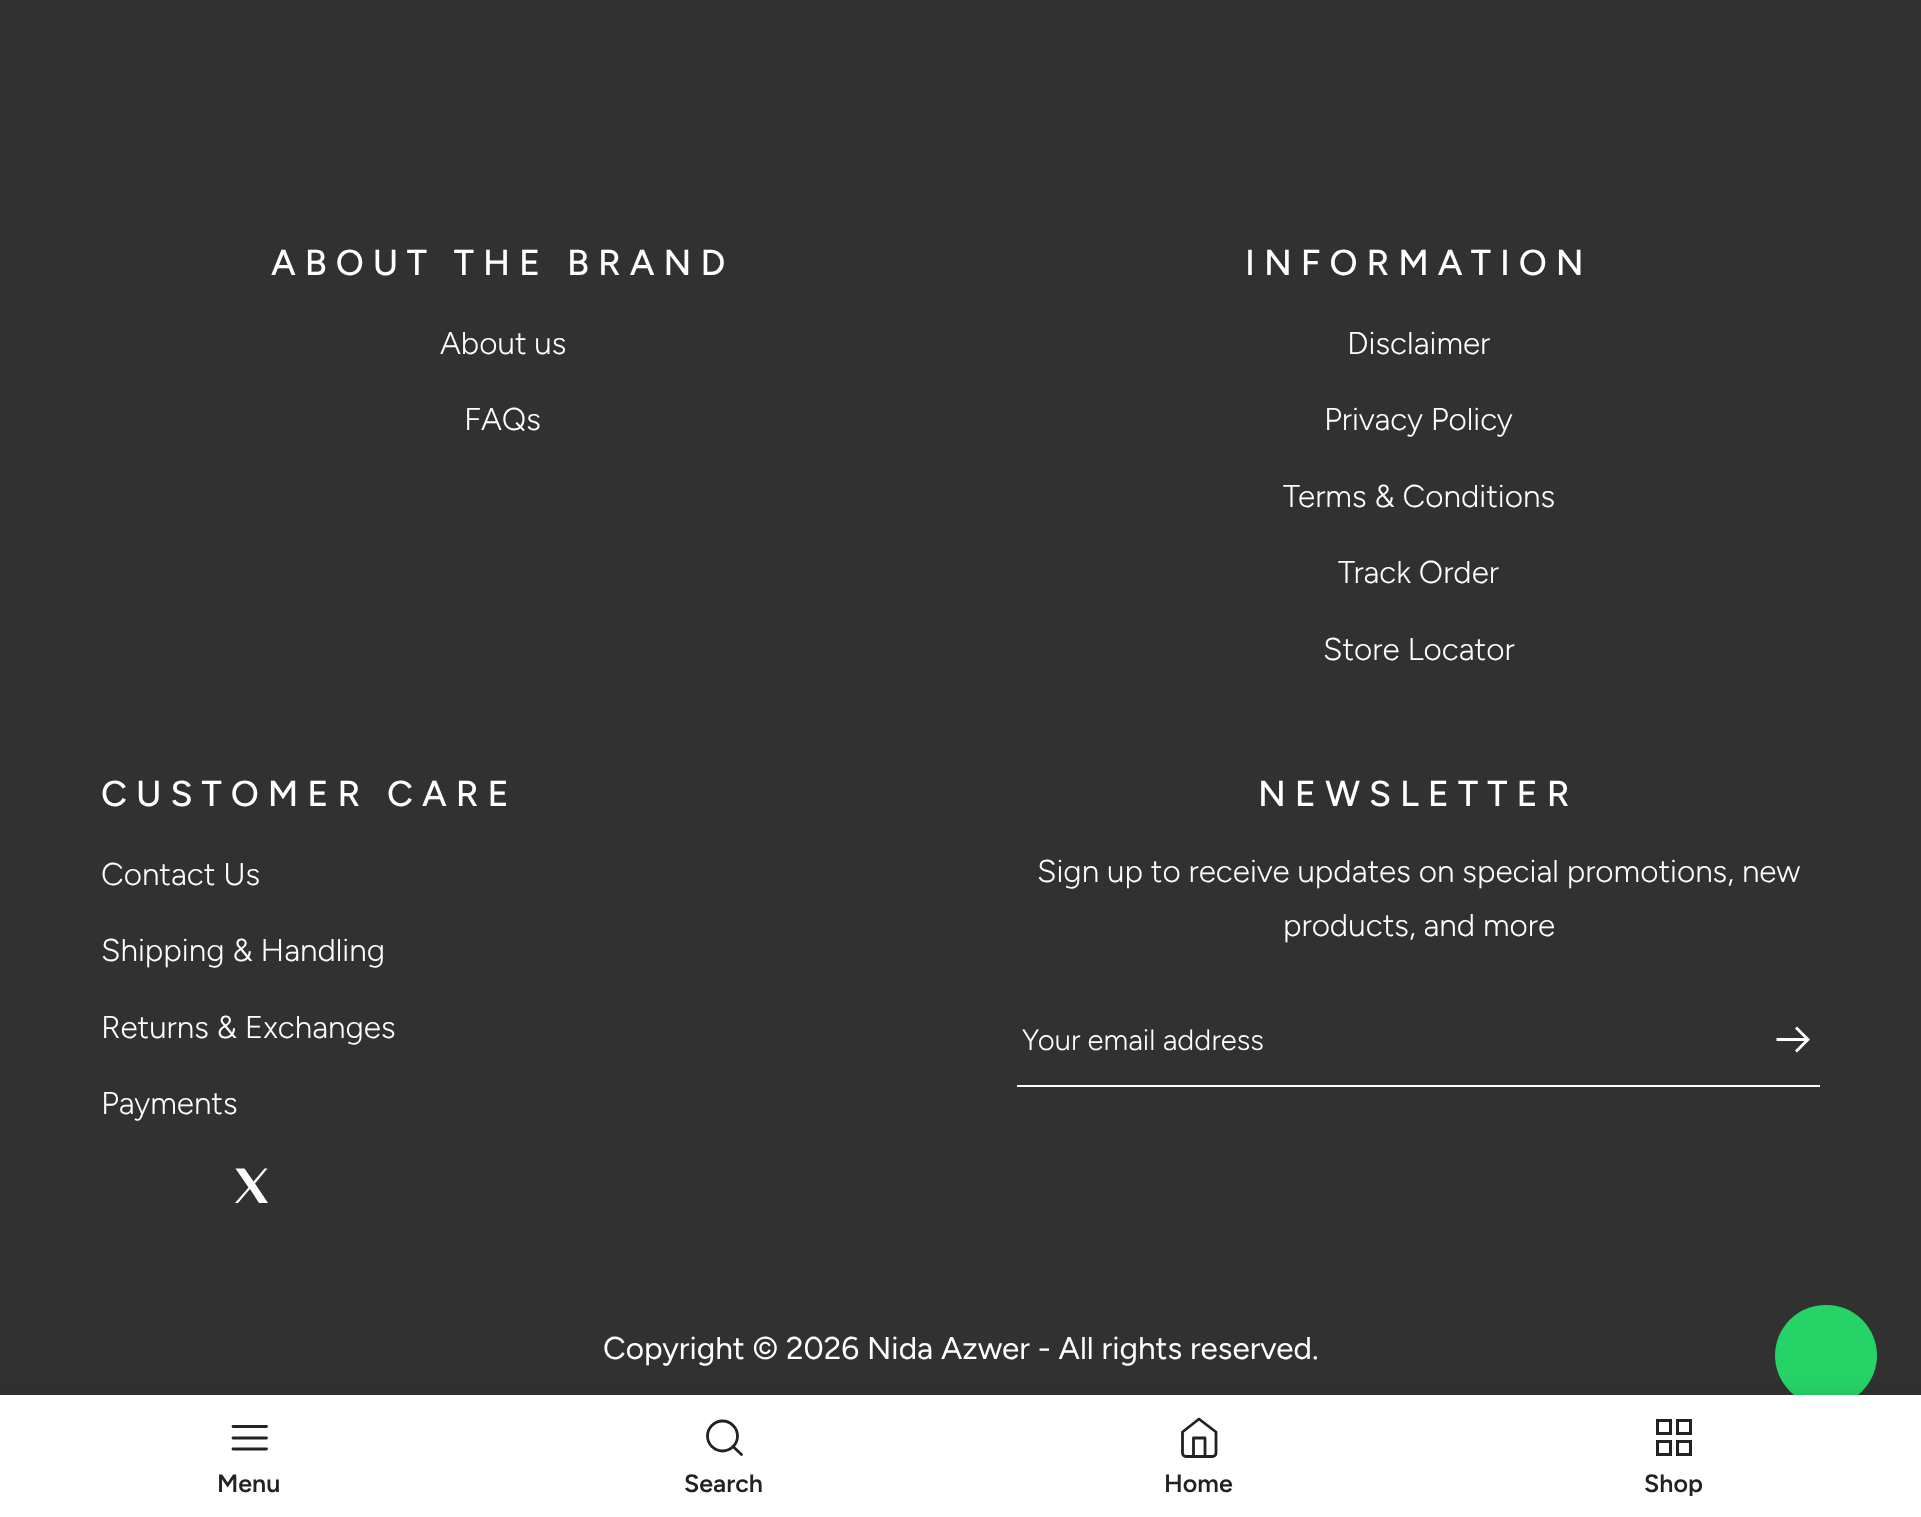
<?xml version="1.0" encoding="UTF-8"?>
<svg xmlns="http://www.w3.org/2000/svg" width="1921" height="1517">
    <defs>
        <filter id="blur1" x="-50%" y="-200%" width="200%" height="500%"><feGaussianBlur stdDeviation="10"/></filter>
        <clipPath id="clip1"><rect x="1458" y="1472" width="430" height="24"/></clipPath>
    </defs>
    <rect width="100%" height="100%" fill="#313131"/>
    <text x="271" y="275" font-family="Figtree" font-size="36" font-weight="500" letter-spacing="9" fill="#FFFFFF">ABOUT THE BRAND</text>
    <text x="440" y="354" font-family="Figtree" font-size="31.5" font-weight="300" fill="#FFFFFF">About us</text>
    <text x="464" y="430" font-family="Figtree" font-size="31.5" font-weight="300" fill="#FFFFFF">FAQs</text>
    <text x="1245" y="275" font-family="Figtree" font-size="36" font-weight="500" letter-spacing="9" fill="#FFFFFF">INFORMATION</text>
    <text x="1347" y="354" font-family="Figtree" font-size="31.5" font-weight="300" fill="#FFFFFF">Disclaimer</text>
    <text x="1324" y="430" font-family="Figtree" font-size="31.5" font-weight="300" fill="#FFFFFF">Privacy Policy</text>
    <text x="1283" y="507" font-family="Figtree" font-size="31.5" font-weight="300" fill="#FFFFFF">Terms &amp; Conditions</text>
    <text x="1338" y="583" font-family="Figtree" font-size="31.5" font-weight="300" fill="#FFFFFF">Track Order</text>
    <text x="1323" y="660" font-family="Figtree" font-size="31.5" font-weight="300" fill="#FFFFFF">Store Locator</text>
    <text x="101" y="806" font-family="Figtree" font-size="36" font-weight="500" letter-spacing="9" fill="#FFFFFF">CUSTOMER CARE</text>
    <text x="101" y="885" font-family="Figtree" font-size="31.5" font-weight="300" fill="#FFFFFF">Contact Us</text>
    <text x="101" y="961" font-family="Figtree" font-size="31.5" font-weight="300" fill="#FFFFFF">Shipping &amp; Handling</text>
    <text x="101" y="1038" font-family="Figtree" font-size="31.5" font-weight="300" fill="#FFFFFF">Returns &amp; Exchanges</text>
    <text x="101" y="1114" font-family="Figtree" font-size="31.5" font-weight="300" fill="#FFFFFF">Payments</text>
    <path d="M 235.5 1168.5 L 248.5 1187.5 L 235 1203 H 238 L 250 1189 L 259 1203 H 268 L 255 1183.5 L 267.5 1168.5 H 264.5 L 253.5 1181.5 L 244.5 1168.5 Z" fill="#FFFFFF"/>
    <text x="1258" y="806" font-family="Figtree" font-size="36" font-weight="500" letter-spacing="9" fill="#FFFFFF">NEWSLETTER</text>
    <text x="1037" y="882" font-family="Figtree" font-size="31.5" font-weight="300" fill="#FFFFFF">Sign up to receive updates on special promotions, new</text>
    <text x="1283" y="936" font-family="Figtree" font-size="31.5" font-weight="300" fill="#FFFFFF">products, and more</text>
    <rect x="1017" y="1085" width="803" height="2" fill="#FFFFFF"/>
    <text x="1022" y="1050" font-family="Figtree" font-size="29.25" font-weight="300" fill="#FFFFFF">Your email address</text>
    <path d="M 1797 1026.5 L 1795 1028.5 L 1804.5 1038 H 1776.5 V 1041 H 1804.5 L 1795 1050.5 L 1797 1052.5 L 1810 1039.5 L 1809 1038.5 Z" fill="#FFFFFF"/>
    <text x="603" y="1359" font-family="Figtree" font-size="31.5" fill="#FFFFFF">Copyright © 2026 Nida Azwer - All rights reserved.</text>
    <rect x="1775" y="1305" width="102" height="101" rx="50.5" fill="#25D366"/>
    <rect x="0" y="1395" width="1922" height="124" fill="#000000" fill-opacity="0.12" filter="url(#blur1)"/>
    <rect x="0" y="1395" width="1921" height="122" fill="#FFFFFF"/>
    <path d="M 233 1438 H 266.5 M 233 1426.5 H 266.5 M 233 1449 H 266.5" fill="none" stroke="#222222" stroke-width="2.8" stroke-linecap="round" stroke-linejoin="round"/>
    <text x="217" y="1492" font-family="Figtree" font-size="25" font-weight="600" fill="#222222">Menu</text>
    <circle cx="722.5" cy="1436" r="15" fill="none" stroke="#222222" stroke-width="2.8"/>
    <path d="M 741.5 1454.5 L 733 1446.5" fill="none" stroke="#222222" stroke-width="2.8" stroke-linecap="round" stroke-linejoin="round"/>
    <text x="684" y="1492" font-family="Figtree" font-size="25" font-weight="600" fill="#222222">Search</text>
    <path d="M 1182.5 1432 L 1199 1419 L 1216 1432 V 1453 C 1216 1455 1214.5 1456.5 1212.5 1456.5 H 1186 C 1184 1456.5 1182.5 1455 1182.5 1453 Z M 1193.5 1456.5 V 1438 H 1205 V 1456.5" fill="none" stroke="#222222" stroke-width="2.8" stroke-linecap="round" stroke-linejoin="round"/>
    <text x="1164" y="1492" font-family="Figtree" font-size="25" font-weight="600" fill="#222222">Home</text>
    <rect x="1657.5" y="1420.5" width="13" height="13" fill="none" stroke="#222222" stroke-width="3"/>
    <rect x="1677.5" y="1420.5" width="13" height="13" fill="none" stroke="#222222" stroke-width="3"/>
    <rect x="1657.5" y="1441.5" width="13" height="13" fill="none" stroke="#222222" stroke-width="3"/>
    <rect x="1677.5" y="1441.5" width="13" height="13" fill="none" stroke="#222222" stroke-width="3"/>
    <g clip-path="url(#clip1)">
        <text x="1644" y="1492" font-family="Figtree" font-size="25" font-weight="600" fill="#222222">Shop</text>
    </g>
</svg>
